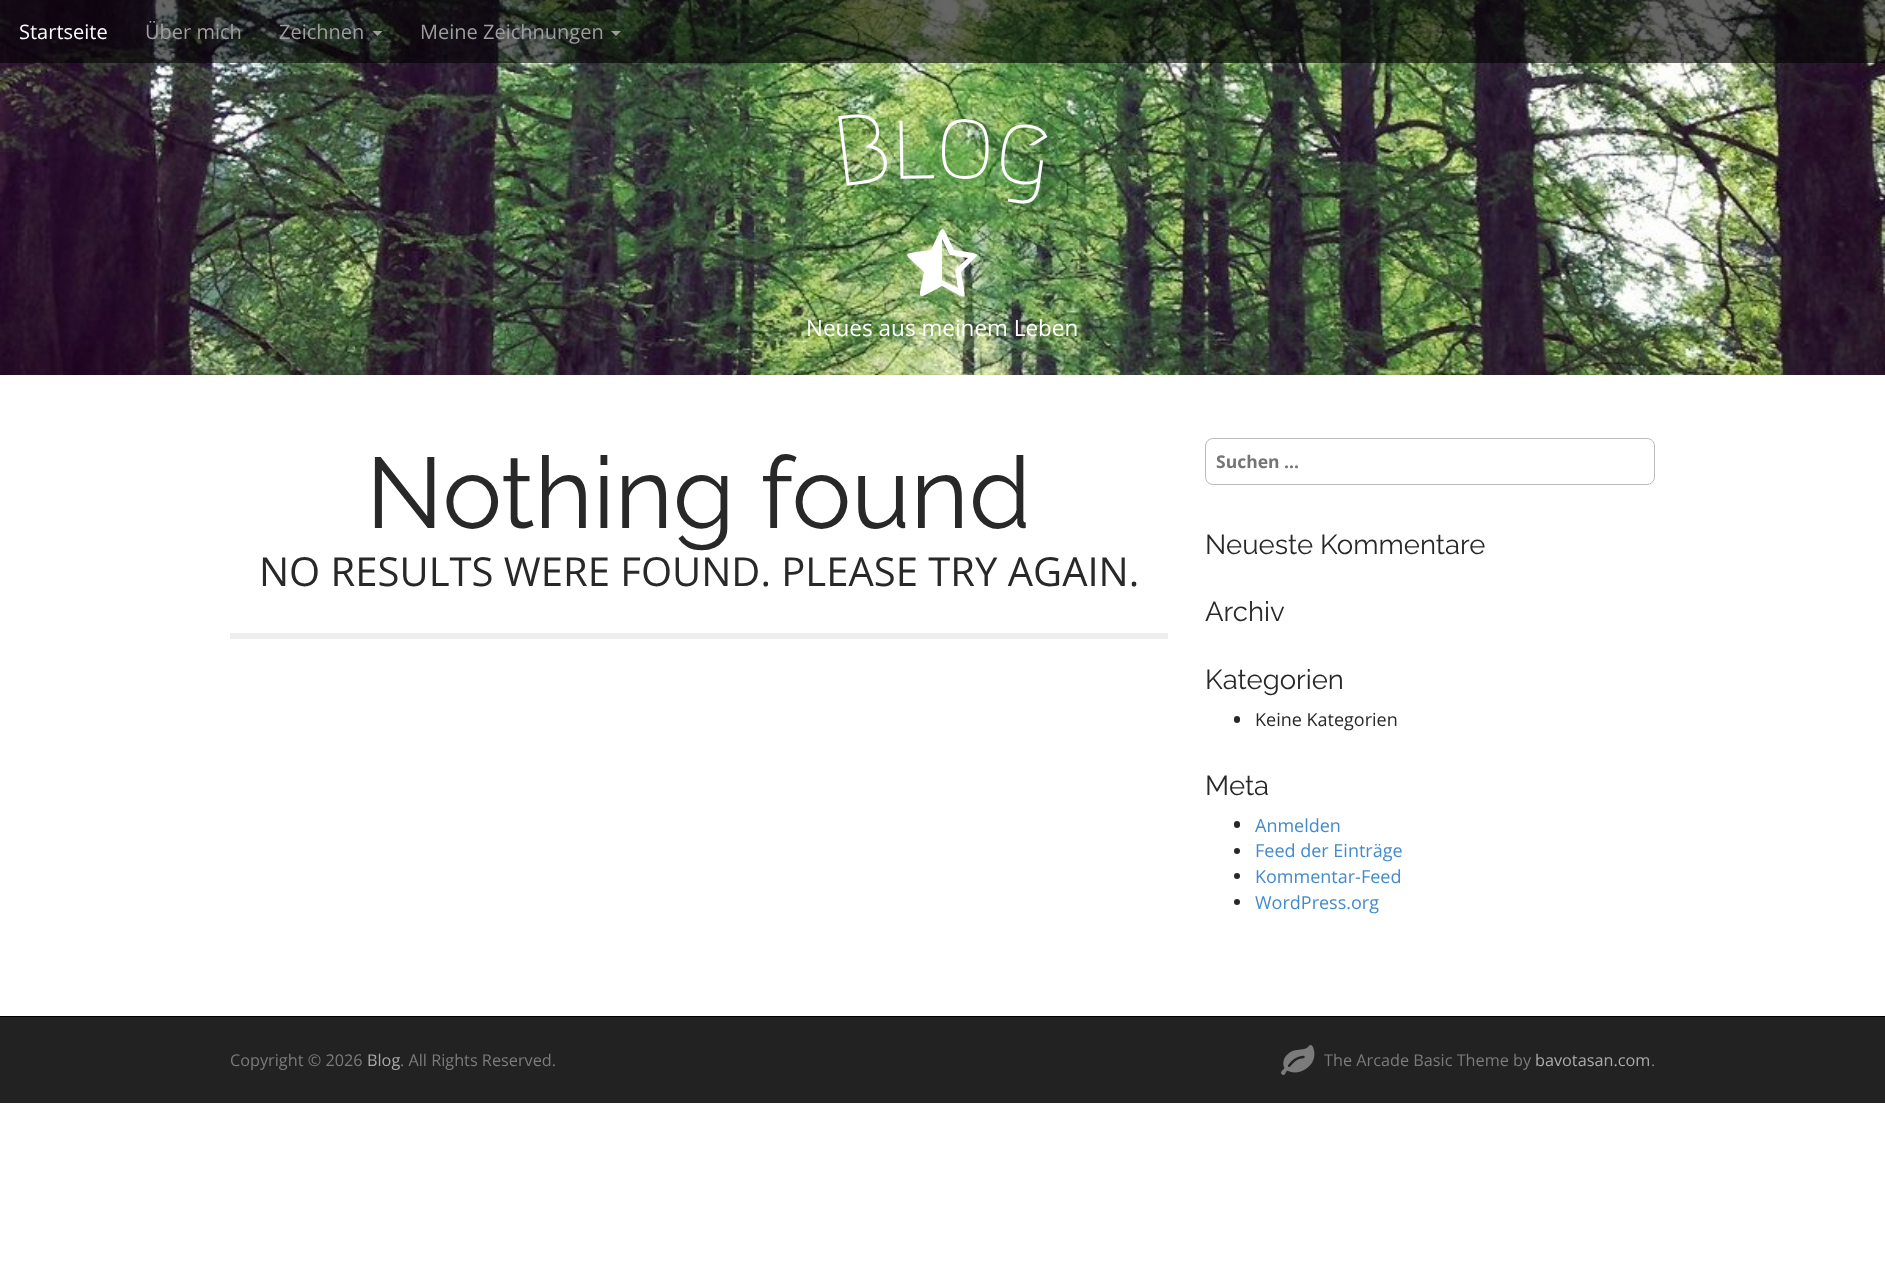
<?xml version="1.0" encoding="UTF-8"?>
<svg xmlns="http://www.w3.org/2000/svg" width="1885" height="1276">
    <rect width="100%" height="100%" fill="#FFFFFF"/>
    <image x="0" y="0" width="1885" height="375" href="img_01.png"/>
    <rect x="0" y="0" width="1885" height="63" fill="#000000" fill-opacity="0.6"/>
    <text x="19" y="39" font-family="Open Sans" font-size="20" fill="#FFFFFF">Startseite</text>
    <text x="145" y="39" font-family="Open Sans" font-size="20" fill="#9D9D9D">Über mich</text>
    <text x="279" y="39" font-family="Open Sans" font-size="20" fill="#9D9D9D">Zeichnen</text>
    <path d="M 372.5 31 H 382.5 L 377.5 36 Z" fill="#9D9D9D"/>
    <text x="420" y="39" font-family="Open Sans" font-size="20" fill="#9D9D9D">Meine Zeichnungen</text>
    <path d="M 611 31 H 621 L 616 36 Z" fill="#9D9D9D"/>
    <text x="837" y="187" transform="rotate(-7 837 187)" font-family="Megrim" font-size="100" font-weight="500" fill="#FFFFFF">B</text>
    <text x="891" y="179" transform="rotate(-1 891 179)" font-family="Megrim" font-size="100" font-weight="500" fill="#FFFFFF">l</text>
    <text x="934" y="177" transform="rotate(2 934 177)" font-family="Megrim" font-size="100" font-weight="500" fill="#FFFFFF">o</text>
    <text x="991" y="179" transform="rotate(8 991 179)" font-family="Megrim" font-size="100" font-weight="500" fill="#FFFFFF">g</text>
    <path d="M 957 268 L 968 258 L 950 255 L 942 239 V 280 L 958 288 L 955 270 Z M 976 257 L 961 272 C 966 303 970 300 942 286 C 915 300 918 303 924 272 C 901 250 900 255 931 250 C 945 222 940 222 954 250 L 968 252 C 969 253 981 253 976 257 Z" fill="#FFFFFF"/>
    <text x="806" y="336" font-family="Open Sans" font-size="22.5" fill="#FFFFFF">Neues aus meinem Leben</text>
    <rect x="230" y="633" width="938" height="6" fill="#EEEEEE"/>
    <text x="366" y="528" font-family="Raleway" font-size="100" font-weight="100" fill="#282828">Nothing found</text>
    <text x="259" y="586" font-family="Open Sans" font-size="40" fill="#282828">NO RESULTS WERE FOUND. PLEASE TRY AGAIN.</text>
    <rect x="1205.5" y="438.5" width="449" height="46" rx="7.5" fill="none" stroke="#BBBBBB"/>
    <text x="1216" y="468" font-family="Open Sans" font-size="17.5" font-weight="700" fill="#757575">Suchen …</text>
    <text x="1205" y="554" font-family="Raleway" font-size="27.5" font-weight="100" fill="#282828">Neueste Kommentare</text>
    <text x="1205" y="621" font-family="Raleway" font-size="27.5" font-weight="100" fill="#282828">Archiv</text>
    <text x="1205" y="689" font-family="Raleway" font-size="27.5" font-weight="100" fill="#282828">Kategorien</text>
    <rect x="1234" y="716" width="6" height="7" rx="3" fill="#282828"/>
    <text x="1255" y="726" font-family="Open Sans" font-size="18" fill="#282828">Keine Kategorien</text>
    <text x="1205" y="795" font-family="Raleway" font-size="27.5" font-weight="100" fill="#282828">Meta</text>
    <rect x="1234" y="821" width="6" height="7" rx="3" fill="#282828"/>
    <text x="1255" y="832" font-family="Open Sans" font-size="18" fill="#428BCA">Anmelden</text>
    <circle cx="1237" cy="851" r="3" fill="#282828"/>
    <text x="1255" y="857" font-family="Open Sans" font-size="18" fill="#428BCA">Feed der Einträge</text>
    <circle cx="1237" cy="876" r="3" fill="#282828"/>
    <text x="1255" y="883" font-family="Open Sans" font-size="18" fill="#428BCA">Kommentar-Feed</text>
    <circle cx="1237" cy="902" r="3" fill="#282828"/>
    <text x="1255" y="909" font-family="Open Sans" font-size="18" fill="#428BCA">WordPress.org</text>
    <rect x="0" y="1017" width="1885" height="86" fill="#222222"/>
    <rect x="0" y="1016" width="1885" height="1" fill="#000000"/>
    <text x="230" y="1066" font-family="Open Sans" font-size="16.25" fill="#7B7B7B">Copyright © 2026</text>
    <text x="367" y="1066" font-family="Open Sans" font-size="16.25" fill="#AAAAAA">Blog</text>
    <text x="400" y="1066" font-family="Open Sans" font-size="16.25" fill="#7B7B7B">. All Rights Reserved.</text>
    <image x="1281" y="1045" width="34" height="30" href="img_02.png"/>
    <text x="1324" y="1066" font-family="Open Sans" font-size="16.25" fill="#7B7B7B">The Arcade Basic Theme by</text>
    <text x="1535" y="1066" font-family="Open Sans" font-size="16.25" fill="#AAAAAA">bavotasan.com</text>
    <text x="1651" y="1066" font-family="Open Sans" font-size="16.25" fill="#7B7B7B">.</text>
</svg>
